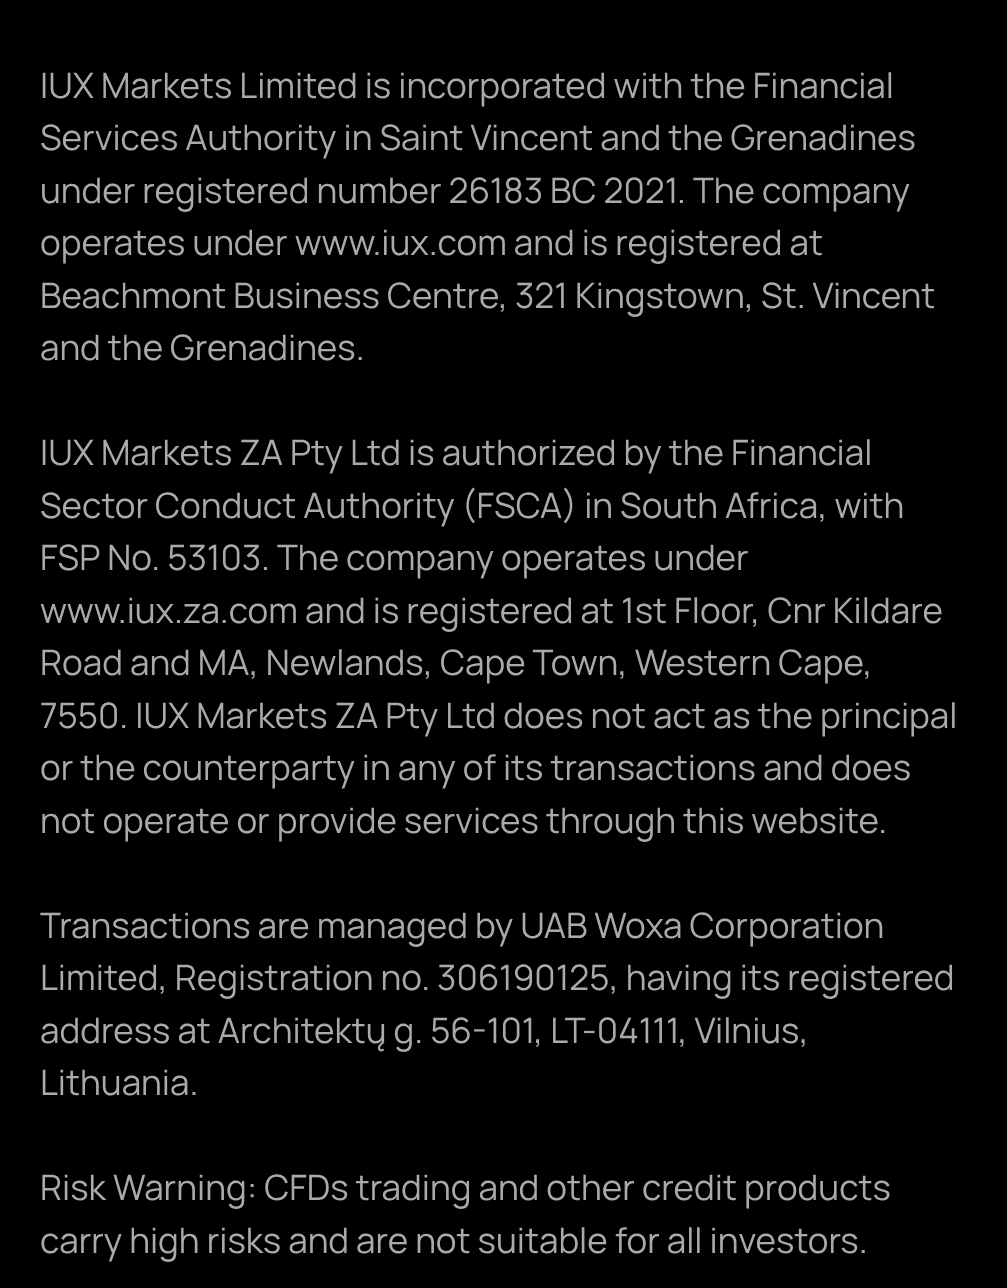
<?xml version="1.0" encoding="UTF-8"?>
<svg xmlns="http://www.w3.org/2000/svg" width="1007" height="1288">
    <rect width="100%" height="100%" fill="#000000"/>
    <text font-family="Manrope" font-size="35" fill="#AAAAAA">
        <tspan x="40" y="98">IUX Markets Limited is incorporated with the Financial</tspan>
        <tspan x="40" y="150">Services Authority in Saint Vincent and the Grenadines</tspan>
        <tspan x="40" y="203">under registered number 26183 BC 2021. The company</tspan>
        <tspan x="40" y="255">operates under www.iux.com and is registered at</tspan>
        <tspan x="40" y="308">Beachmont Business Centre, 321 Kingstown, St. Vincent</tspan>
        <tspan x="40" y="360">and the Grenadines.</tspan>
    </text>
    <text font-family="Manrope" font-size="35" fill="#AAAAAA">
        <tspan x="40" y="465">IUX Markets ZA Pty Ltd is authorized by the Financial</tspan>
        <tspan x="40" y="518">Sector Conduct Authority (FSCA) in South Africa, with</tspan>
        <tspan x="40" y="570">FSP No. 53103. The company operates under</tspan>
        <tspan x="40" y="623">www.iux.za.com and is registered at 1st Floor, Cnr Kildare</tspan>
        <tspan x="40" y="675">Road and MA, Newlands, Cape Town, Western Cape,</tspan>
        <tspan x="40" y="728">7550. IUX Markets ZA Pty Ltd does not act as the principal</tspan>
        <tspan x="40" y="780">or the counterparty in any of its transactions and does</tspan>
        <tspan x="40" y="833">not operate or provide services through this website.</tspan>
    </text>
    <text font-family="Manrope" font-size="35" fill="#AAAAAA">
        <tspan x="40" y="938">Transactions are managed by UAB Woxa Corporation</tspan>
        <tspan x="40" y="990">Limited, Registration no. 306190125, having its registered</tspan>
        <tspan x="40" y="1043">address at Architektų g. 56-101, LT-04111, Vilnius,</tspan>
        <tspan x="40" y="1095">Lithuania.</tspan>
    </text>
    <text font-family="Manrope" font-size="35" fill="#AAAAAA">
        <tspan x="40" y="1200">Risk Warning: CFDs trading and other credit products</tspan>
        <tspan x="40" y="1253">carry high risks and are not suitable for all investors.</tspan>
    </text>
</svg>
